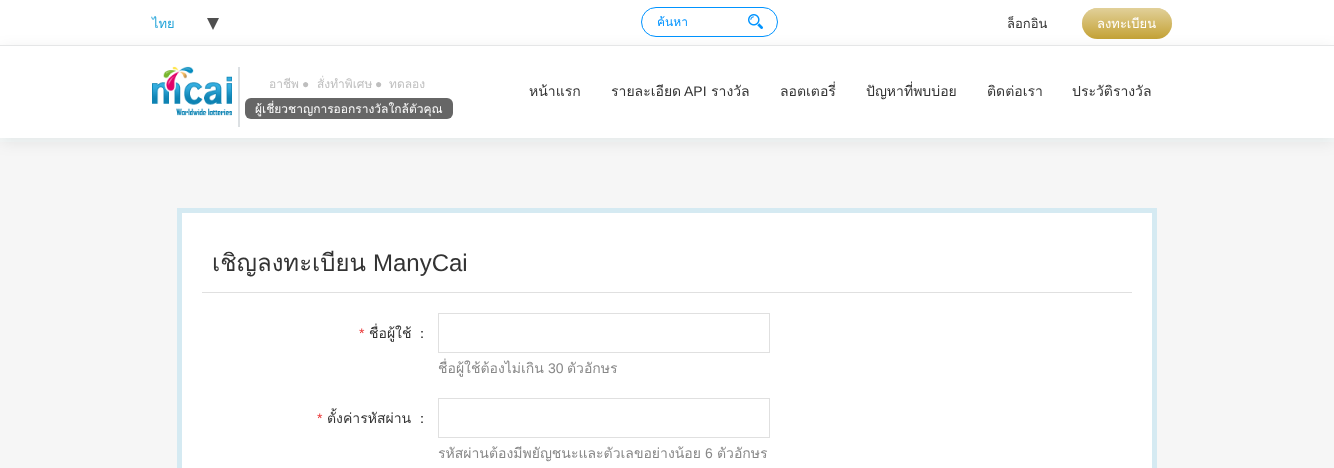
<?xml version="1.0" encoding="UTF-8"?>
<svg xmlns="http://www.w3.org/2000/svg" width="1334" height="468">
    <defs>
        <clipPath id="clip1"><rect x="657" y="12" width="80" height="19"/></clipPath>
        <linearGradient id="g1" gradientUnits="userSpaceOnUse" x1="1127" y1="8" x2="1127" y2="39"><stop offset="0" stop-color="#FFFFFF" stop-opacity="0.5"/><stop offset="1" stop-color="#FFFFFF" stop-opacity="0"/></linearGradient>
        <clipPath id="clip2"><path d="M 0 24 H 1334 V 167 H 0 Z M 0 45 H 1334 V 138 H 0 Z" clip-rule="evenodd"/></clipPath>
        <filter id="blur1" x="-50%" y="-200%" width="200%" height="500%"><feGaussianBlur stdDeviation="8"/></filter>
    </defs>
    <rect width="100%" height="100%" fill="#FFFFFF"/>
    <text x="152" y="28" font-family="Loma" font-size="13" fill="#24A4D9">ไทย</text>
    <path d="M 207 18 H 219 L 213 30 Z" fill="#4F4F4F"/>
    <rect x="641.5" y="7.5" width="136" height="29" rx="14.5" fill="none" stroke="#0093FF"/>
    <g clip-path="url(#clip1)">
        <text x="657" y="26" font-family="Loma" font-size="12" fill="#0093FF">ค้นหา</text>
    </g>
    <image x="748" y="14" width="15" height="15" href="img_01.png"/>
    <text x="1007" y="28" font-family="Loma" font-size="13" fill="#333333">ล็อกอิน</text>
    <rect x="1082" y="8" width="90" height="31" rx="15.5" fill="#C4A235"/>
    <rect x="1082" y="8" width="90" height="31" rx="15.5" fill="url(#g1)"/>
    <text x="1097" y="28" font-family="Loma" font-size="13" fill="#FFFFFF">ลงทะเบียน</text>
    <rect x="0" y="138" width="1334" height="330" fill="#F6F6F6"/>
    <g clip-path="url(#clip2)">
        <rect x="0" y="49" width="1334" height="93" fill="#2C3241" fill-opacity="0.08" filter="url(#blur1)"/>
    </g>
    <rect x="0" y="45" width="1334" height="1" fill="#E5E6E7"/>
    <image x="152" y="66" width="80" height="50" href="img_02.png"/>
    <rect x="238" y="67" width="2" height="60" fill="#DCE0E3"/>
    <text x="269" y="88" font-family="Loma" font-size="12" fill="#BEBEBE">อาชีพ</text>
    <text x="302" y="88" font-family="Liberation Sans" font-size="12" fill="#BEBEBE">●</text>
    <text x="317" y="88" font-family="Loma" font-size="12" fill="#BEBEBE">สั่งทำพิเศษ</text>
    <text x="375" y="88" font-family="Liberation Sans" font-size="12" fill="#BEBEBE">●</text>
    <text x="389" y="88" font-family="Loma" font-size="12" fill="#BEBEBE">ทดลอง</text>
    <rect x="245" y="98" width="208" height="21" rx="6" fill="#666666"/>
    <text x="255" y="113" font-family="Loma" font-size="12" fill="#FFFFFF">ผู้เชี่ยวชาญการออกรางวัลใกล้ตัวคุณ</text>
    <text x="529" y="96" font-family="Loma" font-size="14" fill="#333333">หน้าแรก</text>
    <text x="611" y="96" font-family="Loma" font-size="14" fill="#333333">รายละเอียด</text>
    <text x="684" y="96" font-family="Liberation Sans" font-size="14" fill="#333333">API</text>
    <text x="711" y="96" font-family="Loma" font-size="14" fill="#333333">รางวัล</text>
    <text x="780" y="96" font-family="Loma" font-size="14" fill="#333333">ลอตเตอรี่</text>
    <text x="866" y="96" font-family="Loma" font-size="14" fill="#333333">ปัญหาที่พบบ่อย</text>
    <text x="987" y="96" font-family="Loma" font-size="14" fill="#333333">ติดต่อเรา</text>
    <text x="1072" y="96" font-family="Loma" font-size="14" fill="#333333">ประวัติรางวัล</text>
    <rect x="179.5" y="210.5" width="975" height="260" fill="#FFFFFF" stroke="#D5EAF2" stroke-width="5"/>
    <rect x="202" y="292" width="930" height="1" fill="#E0E0E0"/>
    <text x="212" y="271" font-family="Loma" font-size="24" fill="#333333">เชิญลงทะเบียน</text>
    <text x="373" y="271" font-family="Liberation Sans" font-size="24" fill="#333333">ManyCai</text>
    <text x="359" y="338" font-family="Liberation Sans" font-size="14" fill="#E92C2C">*</text>
    <text x="369" y="338" font-family="Loma" font-size="14" fill="#333333">ชื่อผู้ใช้</text>
    <text x="415" y="338" font-family="WenQuanYi Zen Hei" font-size="14" font-weight="500" fill="#333333">：</text>
    <rect x="438.5" y="313.5" width="331" height="39" fill="none" stroke="#E0E0E0"/>
    <text x="438" y="373" font-family="Loma" font-size="14" fill="#888888">ชื่อผู้ใช้ต้องไม่เกิน</text>
    <text x="548" y="373" font-family="Liberation Sans" font-size="14" fill="#888888">30</text>
    <text x="567" y="373" font-family="Loma" font-size="14" fill="#888888">ตัวอักษร</text>
    <text x="317" y="423" font-family="Liberation Sans" font-size="14" fill="#E92C2C">*</text>
    <text x="327" y="423" font-family="Loma" font-size="14" fill="#333333">ตั้งค่ารหัสผ่าน</text>
    <text x="415" y="423" font-family="WenQuanYi Zen Hei" font-size="14" font-weight="500" fill="#333333">：</text>
    <rect x="438.5" y="398.5" width="331" height="39" fill="none" stroke="#E0E0E0"/>
    <text x="438" y="458" font-family="Loma" font-size="14" fill="#888888">รหัสผ่านต้องมีพยัญชนะและตัวเลขอย่างน้อย</text>
    <text x="705" y="458" font-family="Liberation Sans" font-size="14" fill="#888888">6</text>
    <text x="717" y="458" font-family="Loma" font-size="14" fill="#888888">ตัวอักษร</text>
</svg>
